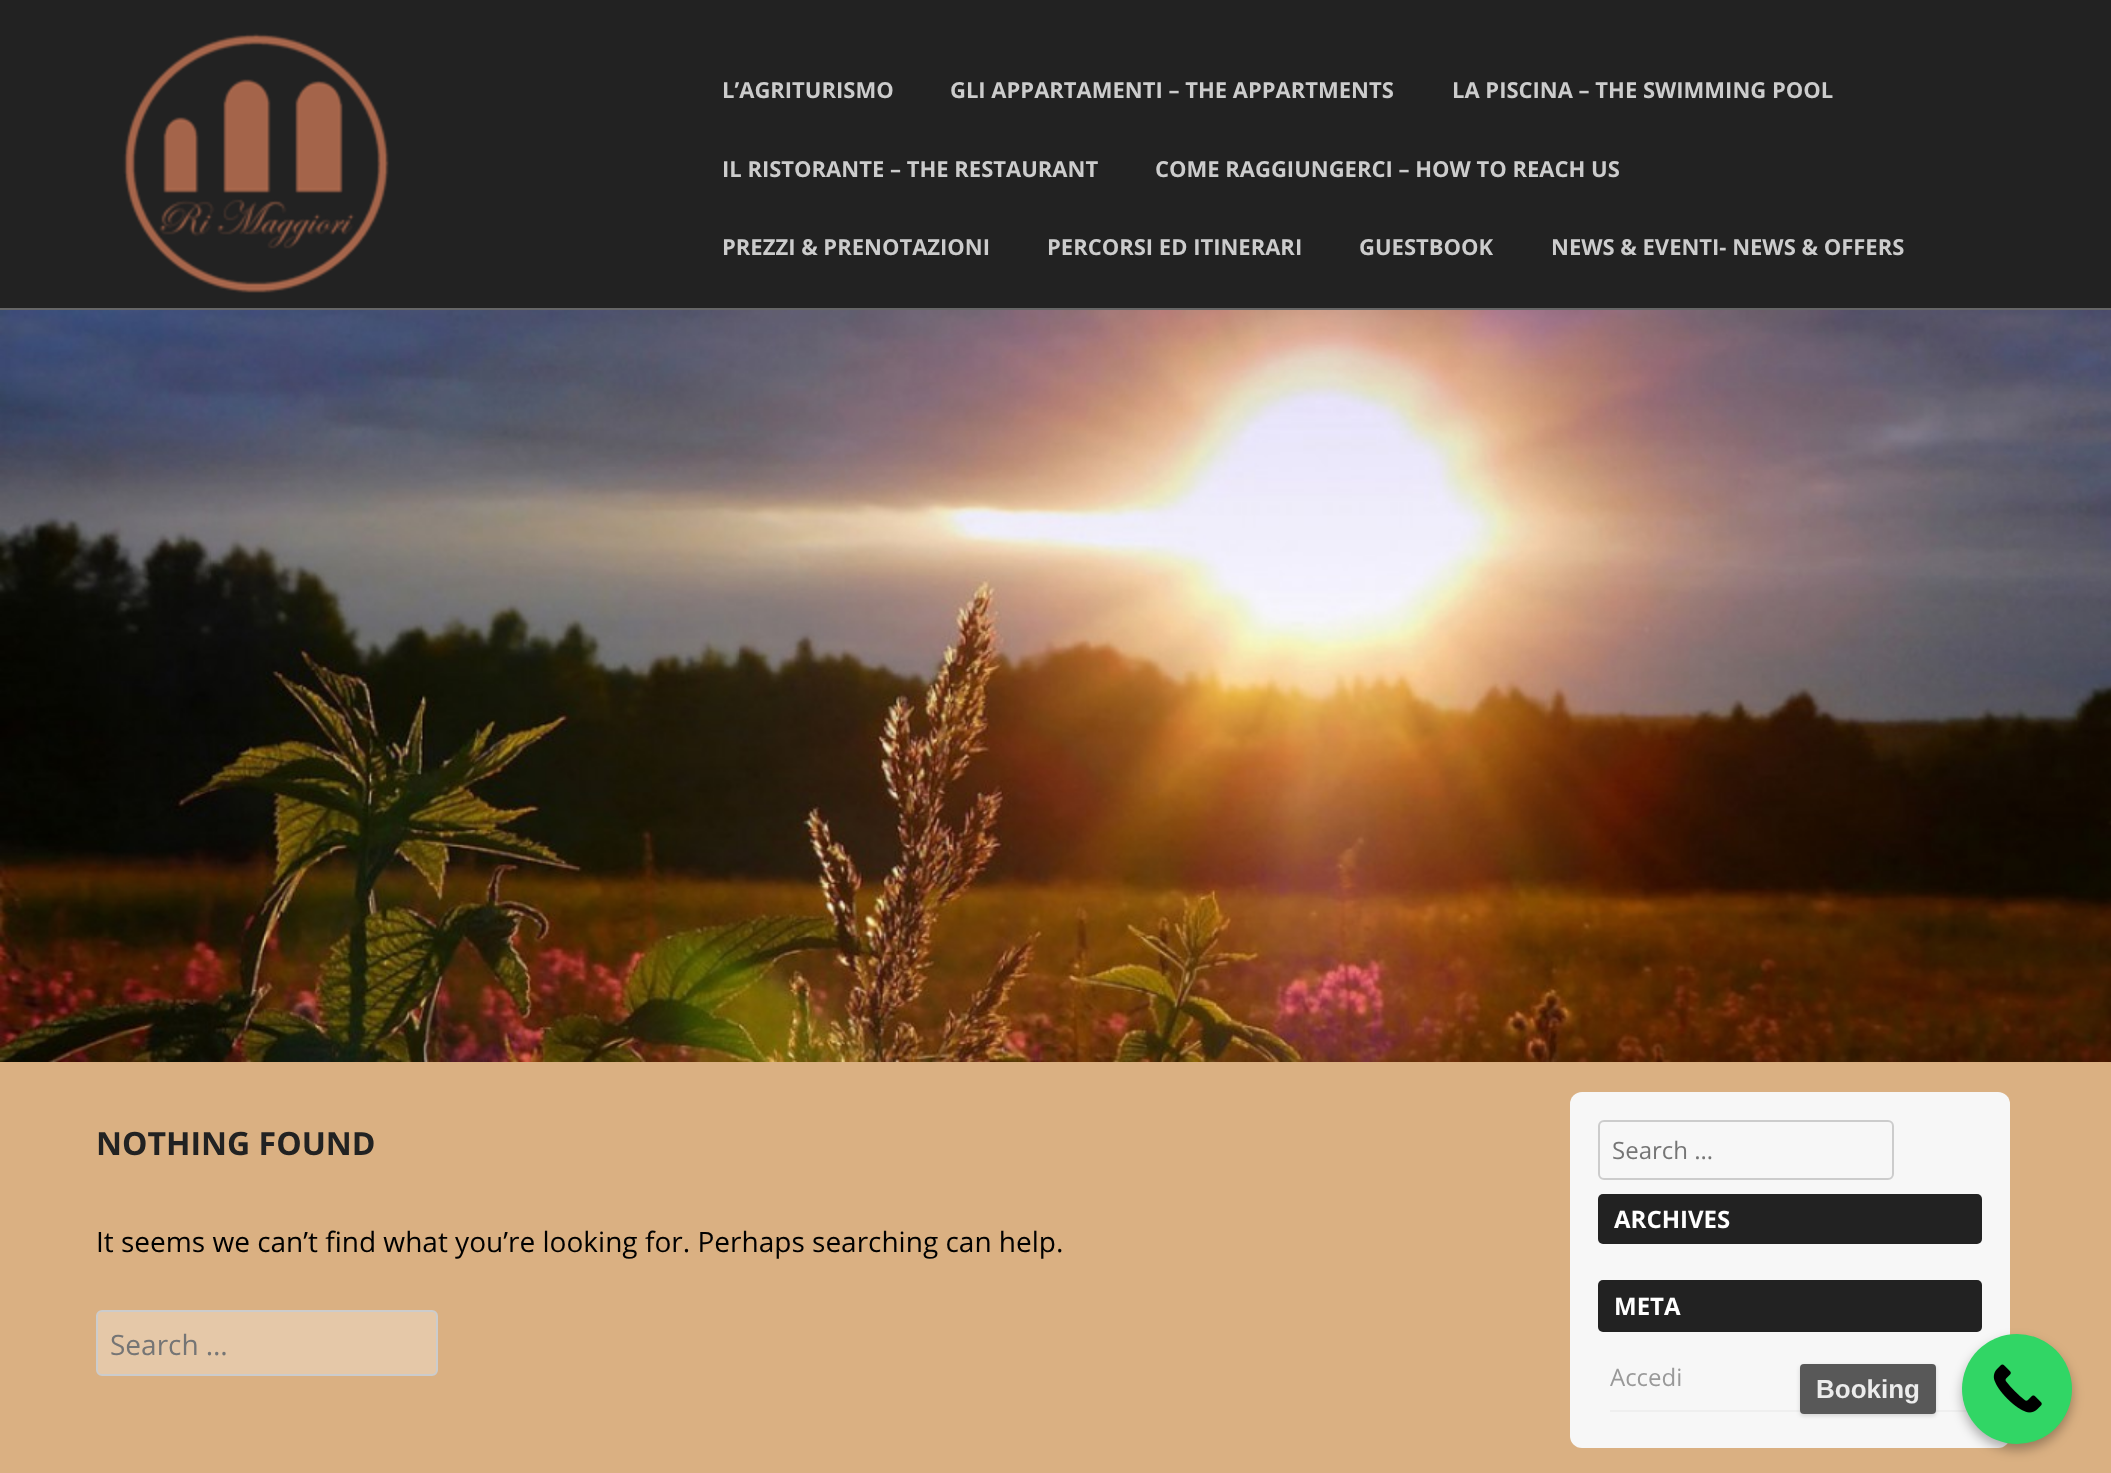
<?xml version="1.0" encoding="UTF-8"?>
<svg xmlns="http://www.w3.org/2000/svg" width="2111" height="1473">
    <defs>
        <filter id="blur1" x="-50%" y="-200%" width="200%" height="500%"><feGaussianBlur stdDeviation="6"/></filter>
        <clipPath id="clip1"><path d="M 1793 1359 H 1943 V 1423 H 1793 Z M 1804 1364 H 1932 C 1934 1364 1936 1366 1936 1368 V 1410 C 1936 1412 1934 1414 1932 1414 H 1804 C 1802 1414 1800 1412 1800 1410 V 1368 C 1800 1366 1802 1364 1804 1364 Z" clip-rule="evenodd"/></clipPath>
        <filter id="blur2" x="-50%" y="-200%" width="200%" height="500%"><feGaussianBlur stdDeviation="2"/></filter>
    </defs>
    <rect width="100%" height="100%" fill="#DAB082"/>
    <rect x="0" y="0" width="2111" height="308" fill="#222222"/>
    <rect x="0" y="308" width="2111" height="2" fill="#666666"/>
    <image x="123" y="33" width="266" height="260" href="img_01.png"/>
    <text x="722" y="98" font-family="Open Sans" font-size="22" font-weight="700" fill="#CCCCCC">L’AGRITURISMO</text>
    <text x="950" y="98" font-family="Open Sans" font-size="22" font-weight="700" fill="#CCCCCC">GLI APPARTAMENTI – THE APPARTMENTS</text>
    <text x="1452" y="98" font-family="Open Sans" font-size="22" font-weight="700" fill="#CCCCCC">LA PISCINA – THE SWIMMING POOL</text>
    <text x="722" y="177" font-family="Open Sans" font-size="22" font-weight="700" fill="#CCCCCC">IL RISTORANTE – THE RESTAURANT</text>
    <text x="1155" y="177" font-family="Open Sans" font-size="22" font-weight="700" fill="#CCCCCC">COME RAGGIUNGERCI – HOW TO REACH US</text>
    <text x="722" y="255" font-family="Open Sans" font-size="22" font-weight="700" fill="#CCCCCC">PREZZI &amp; PRENOTAZIONI</text>
    <text x="1047" y="255" font-family="Open Sans" font-size="22" font-weight="700" fill="#CCCCCC">PERCORSI ED ITINERARI</text>
    <text x="1359" y="255" font-family="Open Sans" font-size="22" font-weight="700" fill="#CCCCCC">GUESTBOOK</text>
    <text x="1551" y="255" font-family="Open Sans" font-size="22" font-weight="700" fill="#CCCCCC">NEWS &amp; EVENTI- NEWS &amp; OFFERS</text>
    <image x="0" y="310" width="2111" height="752" href="img_02.png"/>
    <text x="96" y="1155" font-family="Open Sans" font-size="32" font-weight="700" fill="#222222">NOTHING FOUND</text>
    <text x="96" y="1252" font-family="Open Sans" font-size="28" fill="#000000">It seems we can’t find what you’re looking for. Perhaps searching can help.</text>
    <rect x="97" y="1311" width="340" height="64" rx="5" fill="#E5C8A8" stroke="#CCCCCC" stroke-width="2"/>
    <text x="110" y="1355" font-family="Open Sans" font-size="28" fill="#757575">Search …</text>
    <rect x="1570" y="1092" width="440" height="356" rx="12" fill="#F7F7F7"/>
    <rect x="1599" y="1121" width="294" height="58" rx="5" fill="none" stroke="#CCCCCC" stroke-width="2"/>
    <text x="1612" y="1159" font-family="Open Sans" font-size="24" fill="#757575">Search …</text>
    <rect x="1598" y="1194" width="384" height="50" rx="5" fill="#222222"/>
    <text x="1614" y="1228" font-family="Open Sans" font-size="24" font-weight="700" fill="#FFFFFF">ARCHIVES</text>
    <rect x="1598" y="1280" width="384" height="52" rx="5" fill="#222222"/>
    <text x="1614" y="1315" font-family="Open Sans" font-size="24" font-weight="700" fill="#FFFFFF">META</text>
    <rect x="1610" y="1410" width="358" height="2" fill="#EFEFEF"/>
    <text x="1610" y="1386" font-family="Open Sans" font-size="24" fill="#999999">Accedi</text>
    <rect x="1962" y="1340" width="110" height="110" rx="55" fill="#000000" fill-opacity="0.3" filter="url(#blur1)"/>
    <circle cx="2017" cy="1389" r="55" fill="#31D665"/>
    <image x="1993" y="1364" width="49" height="49" href="img_03.png"/>
    <g clip-path="url(#clip1)">
        <rect x="1800" y="1366" width="136" height="50" rx="4" fill="#000000" fill-opacity="0.15" filter="url(#blur2)"/>
    </g>
    <rect x="1800" y="1364" width="136" height="50" rx="4" fill="#464646" fill-opacity="0.9"/>
    <text x="1816" y="1398" font-family="Liberation Sans" font-size="26" font-weight="700" fill="#ECECEC">Booking</text>
</svg>
